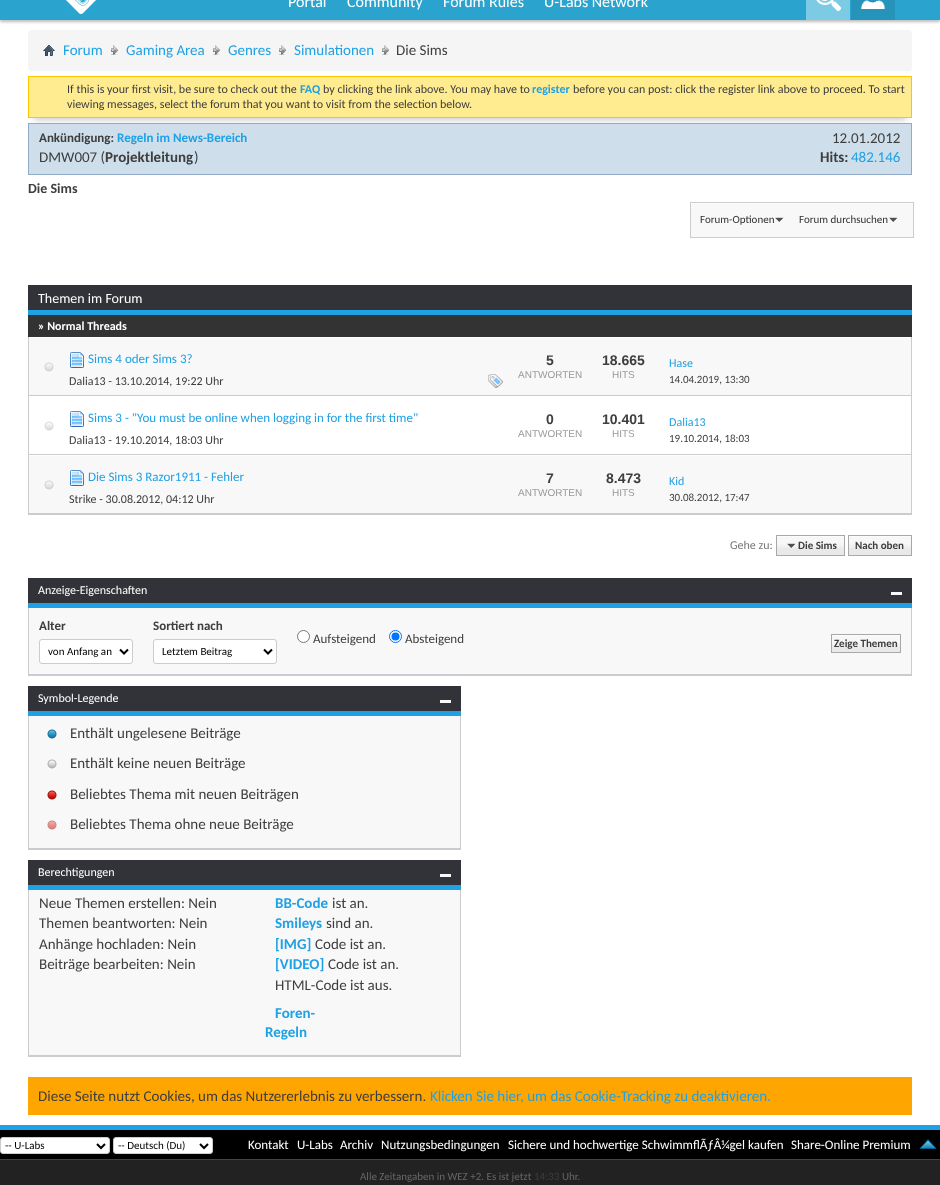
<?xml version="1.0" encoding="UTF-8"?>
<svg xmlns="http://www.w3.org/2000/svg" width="940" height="1185">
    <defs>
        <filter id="blur1" x="-50%" y="-200%" width="200%" height="500%"><feGaussianBlur stdDeviation="1.5"/></filter>
        <filter id="blur2" x="-50%" y="-200%" width="200%" height="500%"><feGaussianBlur stdDeviation="3"/></filter>
    </defs>
    <rect width="100%" height="100%" fill="#FFFFFF"/>
    <rect x="0" y="-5" width="940" height="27" fill="#000000" fill-opacity="0.26" filter="url(#blur1)"/>
    <rect x="0" y="0" width="940" height="20" fill="#2AA4CF"/>
    <image x="66" y="0" width="30" height="14" href="img_01.png"/>
    <text x="288" y="7" font-family="Carlito" font-size="16" fill="#FFFFFF">Portal</text>
    <text x="347" y="7" font-family="Carlito" font-size="16" fill="#FFFFFF">Community</text>
    <text x="443" y="7" font-family="Carlito" font-size="16" fill="#FFFFFF">Forum Rules</text>
    <text x="544" y="7" font-family="Carlito" font-size="16" fill="#FFFFFF">U-Labs Network</text>
    <rect x="806" y="0" width="44" height="20" fill="#7CCBE4"/>
    <image x="816" y="0" width="25" height="11" href="img_02.png"/>
    <rect x="851" y="0" width="44" height="20" fill="#2693BA"/>
    <image x="861" y="0" width="24" height="10" href="img_03.png"/>
    <rect x="28" y="30" width="884" height="41" rx="4" fill="#F5F5F5"/>
    <image x="43" y="45" width="12" height="11" href="img_04.png"/>
    <image x="111" y="45" width="7" height="10" href="img_05.png"/>
    <text x="63" y="55" font-family="Carlito" font-size="15" fill="#1FA1E5">Forum</text>
    <image x="213" y="45" width="7" height="10" href="img_05.png"/>
    <text x="126" y="55" font-family="Carlito" font-size="15" fill="#1FA1E5">Gaming Area</text>
    <image x="279" y="45" width="7" height="10" href="img_06.png"/>
    <text x="228" y="55" font-family="Carlito" font-size="15" fill="#1FA1E5">Genres</text>
    <image x="382" y="45" width="7" height="10" href="img_06.png"/>
    <text x="294" y="55" font-family="Carlito" font-size="15" fill="#1FA1E5">Simulationen</text>
    <text x="396" y="55" font-family="Carlito" font-size="15" fill="#3E3E3E">Die Sims</text>
    <rect x="34" y="90" width="872" height="30" fill="#000000" fill-opacity="0.2" filter="url(#blur2)"/>
    <rect x="28.5" y="76.5" width="883" height="41" fill="#FFEB90" stroke="#FFC600"/>
    <text x="67" y="93" font-family="Carlito" font-size="12" fill="#3E3E3E">If this is your first visit, be sure to check out the</text>
    <text x="300" y="93" font-family="Carlito" font-size="12" font-weight="700" fill="#1FA1E5">FAQ</text>
    <text x="323" y="93" font-family="Carlito" font-size="12" fill="#3E3E3E">by clicking the link above. You may have to</text>
    <text x="532" y="93" font-family="Carlito" font-size="12" font-weight="700" fill="#1FA1E5">register</text>
    <text x="573" y="93" font-family="Carlito" font-size="12" fill="#3E3E3E">before you can post: click the register link above to proceed. To start</text>
    <text x="67" y="108" font-family="Carlito" font-size="12" fill="#3E3E3E">viewing messages, select the forum that you want to visit from the selection below.</text>
    <rect x="28.5" y="123.5" width="883" height="51" fill="#CEDFEB" stroke="#91AAC8"/>
    <text x="39" y="142" font-family="Carlito" font-size="13" font-weight="700" fill="#3E3E3E">Ankündigung:</text>
    <text x="117" y="142" font-family="Carlito" font-size="13" font-weight="700" fill="#1FA1E5">Regeln im News-Bereich</text>
    <text x="39" y="162" font-family="Carlito" font-size="15" fill="#3E3E3E">DMW007 (</text>
    <text x="105" y="162" font-family="Carlito" font-size="15" font-weight="700" fill="#3E3E3E">Projektleitung</text>
    <text x="194" y="162" font-family="Carlito" font-size="15" fill="#3E3E3E">)</text>
    <text x="832" y="143" font-family="Carlito" font-size="15" fill="#3E3E3E">12.01.2012</text>
    <text x="820" y="162" font-family="Carlito" font-size="15" font-weight="700" fill="#3E3E3E">Hits:</text>
    <text x="851" y="162" font-family="Carlito" font-size="15" fill="#1FA1E5">482.146</text>
    <text x="28" y="193" font-family="Carlito" font-size="14" font-weight="700" fill="#3E3E3E">Die Sims</text>
    <rect x="691" y="204" width="222" height="33" fill="#F8F8F8"/>
    <rect x="690.5" y="202.5" width="223" height="35" fill="none" stroke="#CBCCCF"/>
    <image x="775" y="217" width="9" height="5" href="img_07.png"/>
    <text x="700" y="223" font-family="Carlito" font-size="11" fill="#333333">Forum-Optionen</text>
    <image x="889" y="217" width="9" height="5" href="img_07.png"/>
    <text x="799" y="223" font-family="Carlito" font-size="11" fill="#333333">Forum durchsuchen</text>
    <rect x="28" y="285" width="884" height="25" fill="#323239"/>
    <rect x="28" y="310" width="884" height="5" fill="#1FA1E5"/>
    <text x="38" y="303" font-family="Carlito" font-size="14" fill="#FFFFFF">Themen im Forum</text>
    <rect x="28" y="315" width="884" height="22" fill="#333333"/>
    <text x="38" y="330" font-family="Carlito" font-size="12" font-weight="700" fill="#FFFFFF">» Normal Threads</text>
    <rect x="911" y="337" width="1" height="178" fill="#CBCCCF"/>
    <rect x="28" y="514" width="884" height="1" fill="#CBCCCF"/>
    <rect x="28" y="337" width="1" height="178" fill="#CBCCCF"/>
    <rect x="29" y="338" width="882" height="57" fill="#F8F8F8"/>
    <image x="70" y="352" width="14" height="16" href="img_08.png"/>
    <text x="88" y="363" font-family="Carlito" font-size="13" fill="#1FA1E5">Sims 4 oder Sims 3?</text>
    <text x="69" y="385" font-family="Carlito" font-size="12" fill="#3E3E3E">Dalia13 - 13.10.2014, 19:22 Uhr</text>
    <image x="488" y="374" width="15" height="14" href="img_09.png"/>
    <text x="546" y="365" font-family="Liberation Sans" font-size="14" font-weight="700" fill="#3E3E3E">5</text>
    <text x="518" y="378" font-family="Liberation Sans" font-size="10" fill="#999999">ANTWORTEN</text>
    <text x="602" y="365" font-family="Liberation Sans" font-size="14" font-weight="700" fill="#3E3E3E">18.665</text>
    <text x="612" y="378" font-family="Liberation Sans" font-size="10" fill="#999999">HITS</text>
    <text x="669" y="367" font-family="Carlito" font-size="12" fill="#1FA1E5">Hase</text>
    <text x="669" y="383" font-family="Carlito" font-size="11" fill="#3E3E3E">14.04.2019, 13:30</text>
    <rect x="29" y="395" width="882" height="1" fill="#CBCCCF"/>
    <image x="44" y="362" width="10" height="10" href="img_10.png"/>
    <image x="70" y="411" width="14" height="16" href="img_11.png"/>
    <text x="88" y="422" font-family="Carlito" font-size="13" fill="#1FA1E5">Sims 3 - "You must be online when logging in for the first time"</text>
    <text x="69" y="444" font-family="Carlito" font-size="12" fill="#3E3E3E">Dalia13 - 19.10.2014, 18:03 Uhr</text>
    <text x="546" y="424" font-family="Liberation Sans" font-size="14" font-weight="700" fill="#3E3E3E">0</text>
    <text x="518" y="437" font-family="Liberation Sans" font-size="10" fill="#999999">ANTWORTEN</text>
    <text x="602" y="424" font-family="Liberation Sans" font-size="14" font-weight="700" fill="#3E3E3E">10.401</text>
    <text x="612" y="437" font-family="Liberation Sans" font-size="10" fill="#999999">HITS</text>
    <text x="669" y="426" font-family="Carlito" font-size="12" fill="#1FA1E5">Dalia13</text>
    <text x="669" y="442" font-family="Carlito" font-size="11" fill="#3E3E3E">19.10.2014, 18:03</text>
    <rect x="29" y="454" width="882" height="1" fill="#CBCCCF"/>
    <image x="44" y="421" width="10" height="10" href="img_12.png"/>
    <rect x="29" y="456" width="882" height="57" fill="#F8F8F8"/>
    <image x="70" y="470" width="14" height="16" href="img_08.png"/>
    <text x="88" y="481" font-family="Carlito" font-size="13" fill="#1FA1E5">Die Sims 3 Razor1911 - Fehler</text>
    <text x="69" y="503" font-family="Carlito" font-size="12" fill="#3E3E3E">Strike - 30.08.2012, 04:12 Uhr</text>
    <text x="546" y="483" font-family="Liberation Sans" font-size="14" font-weight="700" fill="#3E3E3E">7</text>
    <text x="518" y="496" font-family="Liberation Sans" font-size="10" fill="#999999">ANTWORTEN</text>
    <text x="606" y="483" font-family="Liberation Sans" font-size="14" font-weight="700" fill="#3E3E3E">8.473</text>
    <text x="612" y="496" font-family="Liberation Sans" font-size="10" fill="#999999">HITS</text>
    <text x="669" y="485" font-family="Carlito" font-size="12" fill="#1FA1E5">Kid</text>
    <text x="669" y="501" font-family="Carlito" font-size="11" fill="#3E3E3E">30.08.2012, 17:47</text>
    <rect x="29" y="513" width="882" height="1" fill="#CBCCCF"/>
    <image x="44" y="480" width="10" height="10" href="img_10.png"/>
    <text x="730" y="549" font-family="Carlito" font-size="12" fill="#777777">Gehe zu:</text>
    <rect x="777" y="536" width="67" height="19" fill="#E9E9E9"/>
    <image x="777" y="536" width="67" height="12" href="img_13.png"/>
    <rect x="849" y="536" width="62" height="19" fill="#E9E9E9"/>
    <image x="849" y="536" width="62" height="12" href="img_14.png"/>
    <rect x="776.5" y="535.5" width="68" height="20" fill="none" stroke="#A8A8A8"/>
    <image x="787" y="543" width="9" height="6" href="img_15.png"/>
    <text x="798" y="549" font-family="Carlito" font-size="11" font-weight="700" fill="#3E3E3E">Die Sims</text>
    <rect x="848.5" y="535.5" width="63" height="20" fill="none" stroke="#A8A8A8"/>
    <text x="855" y="549" font-family="Carlito" font-size="11" font-weight="700" fill="#3E3E3E">Nach oben</text>
    <rect x="28" y="578" width="884" height="25" fill="#323239"/>
    <rect x="28" y="603" width="884" height="5" fill="#1FA1E5"/>
    <text x="38" y="594" font-family="Carlito" font-size="12" fill="#FFFFFF">Anzeige-Eigenschaften</text>
    <rect x="891" y="592" width="11" height="3" fill="#F8F8F8"/>
    <rect x="29" y="608" width="882" height="66" fill="#F8F8F8"/>
    <rect x="911" y="608" width="1" height="68" fill="#CBCCCF"/>
    <rect x="28" y="674" width="884" height="2" fill="#CBCCCF"/>
    <rect x="28" y="608" width="1" height="68" fill="#CBCCCF"/>
    <text x="39" y="630" font-family="Carlito" font-size="13" font-weight="700" fill="#3E3E3E">Alter</text>
    <rect x="39.5" y="639.5" width="93" height="24" rx="2.5" fill="#FFFFFF" stroke="#CBCCCF"/>
    <path d="M 120 649.5 L 124 653.5 L 128 649.5" fill="none" stroke="#000000" stroke-width="2"/>
    <text x="48" y="655" font-family="Carlito" font-size="11" fill="#000000">von Anfang an</text>
    <text x="153" y="630" font-family="Carlito" font-size="13" font-weight="700" fill="#3E3E3E">Sortiert nach</text>
    <rect x="153.5" y="639.5" width="123" height="24" rx="2.5" fill="#FFFFFF" stroke="#CBCCCF"/>
    <path d="M 264 649.5 L 268 653.5 L 272 649.5" fill="none" stroke="#000000" stroke-width="2"/>
    <text x="162" y="655" font-family="Carlito" font-size="11" fill="#000000">Letztem Beitrag</text>
    <circle cx="303.5" cy="636.5" r="6" fill="#FFFFFF" stroke="#767676"/>
    <text x="313" y="643" font-family="Carlito" font-size="13" fill="#3E3E3E">Aufsteigend</text>
    <circle cx="395.5" cy="636.5" r="6" fill="#FFFFFF" stroke="#0075FF"/>
    <circle cx="395.5" cy="636.5" r="4" fill="#0075FF"/>
    <text x="405" y="643" font-family="Carlito" font-size="13" fill="#3E3E3E">Absteigend</text>
    <rect x="832" y="635" width="68" height="17" fill="#E9E9E9"/>
    <image x="832" y="635" width="68" height="12" href="img_16.png"/>
    <rect x="831.5" y="634.5" width="69" height="18" fill="none" stroke="#A8A8A8"/>
    <text x="834" y="647" font-family="Carlito" font-size="11" font-weight="700" fill="#3E3E3E">Zeige Themen</text>
    <rect x="28" y="686" width="433" height="25" fill="#323239"/>
    <rect x="28" y="711" width="433" height="5" fill="#1FA1E5"/>
    <text x="38" y="702" font-family="Carlito" font-size="12" fill="#FFFFFF">Symbol-Legende</text>
    <rect x="440" y="700" width="11" height="3" fill="#F8F8F8"/>
    <rect x="29" y="716" width="431" height="132" fill="#F8F8F8"/>
    <rect x="460" y="716" width="1" height="134" fill="#CBCCCF"/>
    <rect x="28" y="848" width="433" height="2" fill="#CBCCCF"/>
    <rect x="28" y="716" width="1" height="134" fill="#CBCCCF"/>
    <image x="47" y="729" width="10" height="10" href="img_17.png"/>
    <text x="70" y="738" font-family="Carlito" font-size="15" fill="#3E3E3E">Enthält ungelesene Beiträge</text>
    <image x="47" y="759" width="10" height="10" href="img_18.png"/>
    <text x="70" y="768" font-family="Carlito" font-size="15" fill="#3E3E3E">Enthält keine neuen Beiträge</text>
    <image x="47" y="790" width="10" height="10" href="img_19.png"/>
    <text x="70" y="799" font-family="Carlito" font-size="15" fill="#3E3E3E">Beliebtes Thema mit neuen Beiträgen</text>
    <image x="47" y="820" width="10" height="10" href="img_20.png"/>
    <text x="70" y="829" font-family="Carlito" font-size="15" fill="#3E3E3E">Beliebtes Thema ohne neue Beiträge</text>
    <rect x="28" y="860" width="433" height="25" fill="#323239"/>
    <rect x="28" y="885" width="433" height="5" fill="#1FA1E5"/>
    <text x="38" y="876" font-family="Carlito" font-size="12" fill="#FFFFFF">Berechtigungen</text>
    <rect x="440" y="874" width="11" height="3" fill="#F8F8F8"/>
    <rect x="29" y="890" width="431" height="165" fill="#F8F8F8"/>
    <rect x="460" y="890" width="1" height="167" fill="#CBCCCF"/>
    <rect x="28" y="1055" width="433" height="2" fill="#CBCCCF"/>
    <rect x="28" y="890" width="1" height="167" fill="#CBCCCF"/>
    <text font-family="Carlito" font-size="15" fill="#3E3E3E">
        <tspan x="39" y="908">Neue Themen erstellen: Nein</tspan>
        <tspan x="39" y="928">Themen beantworten: Nein</tspan>
        <tspan x="39" y="949">Anhänge hochladen: Nein</tspan>
        <tspan x="39" y="969">Beiträge bearbeiten: Nein</tspan>
    </text>
    <text x="275" y="908" font-family="Carlito" font-size="15" font-weight="700" fill="#1FA1E5">BB-Code</text>
    <text x="332" y="908" font-family="Carlito" font-size="15" fill="#3E3E3E">ist an.</text>
    <text x="275" y="928" font-family="Carlito" font-size="15" font-weight="700" fill="#1FA1E5">Smileys</text>
    <text x="326" y="928" font-family="Carlito" font-size="15" fill="#3E3E3E">sind an.</text>
    <text x="275" y="949" font-family="Carlito" font-size="15" font-weight="700" fill="#1FA1E5">[IMG]</text>
    <text x="315" y="949" font-family="Carlito" font-size="15" fill="#3E3E3E">Code ist an.</text>
    <text x="275" y="969" font-family="Carlito" font-size="15" font-weight="700" fill="#1FA1E5">[VIDEO]</text>
    <text x="328" y="969" font-family="Carlito" font-size="15" fill="#3E3E3E">Code ist an.</text>
    <text x="275" y="990" font-family="Carlito" font-size="15" fill="#3E3E3E">HTML-Code ist aus.</text>
    <text x="275" y="1018" font-family="Carlito" font-size="15" font-weight="700" fill="#1FA1E5">Foren-</text>
    <text x="265" y="1037" font-family="Carlito" font-size="15" font-weight="700" fill="#1FA1E5">Regeln</text>
    <rect x="28" y="1077" width="884" height="38" fill="#FFA500"/>
    <text x="38" y="1101" font-family="Carlito" font-size="15" fill="#3E3E3E">Diese Seite nutzt Cookies, um das Nutzererlebnis zu verbessern.</text>
    <text x="430" y="1101" font-family="Carlito" font-size="15" fill="#1FA1E5">Klicken Sie hier, um das Cookie-Tracking zu deaktivieren.</text>
    <rect x="0" y="1160" width="940" height="25" fill="#222222"/>
    <rect x="0" y="1130" width="940" height="29" fill="#000000"/>
    <rect x="0" y="1125" width="940" height="5" fill="#1FA1E5"/>
    <rect x="0.5" y="1137.5" width="109" height="16" rx="2.5" fill="#FFFFFF" stroke="#CBCCCF"/>
    <path d="M 97 1144 L 101 1148 L 105 1144" fill="none" stroke="#000000" stroke-width="2"/>
    <text x="5" y="1149" font-family="Carlito" font-size="11" fill="#000000">-- U-Labs</text>
    <rect x="113.5" y="1137.5" width="99" height="16" rx="2.5" fill="#FFFFFF" stroke="#CBCCCF"/>
    <path d="M 200 1144 L 204 1148 L 208 1144" fill="none" stroke="#000000" stroke-width="2"/>
    <text x="118" y="1149" font-family="Carlito" font-size="11" fill="#000000">-- Deutsch (Du)</text>
    <text x="248" y="1149" font-family="Carlito" font-size="13" fill="#FFFFFF">Kontakt</text>
    <text x="297" y="1149" font-family="Carlito" font-size="13" fill="#FFFFFF">U-Labs</text>
    <text x="340" y="1149" font-family="Carlito" font-size="13" fill="#FFFFFF">Archiv</text>
    <text x="381" y="1149" font-family="Carlito" font-size="13" fill="#FFFFFF">Nutzungsbedingungen</text>
    <text x="508" y="1149" font-family="Carlito" font-size="13" fill="#FFFFFF">Sichere und hochwertige SchwimmflÃƒÂ¼gel kaufen</text>
    <text x="791" y="1149" font-family="Carlito" font-size="13" fill="#FFFFFF">Share-Online Premium</text>
    <image x="920" y="1139" width="16" height="10" href="img_21.png"/>
    <rect x="0" y="1159" width="940" height="1" fill="#444444"/>
    <text x="360" y="1180" font-family="Carlito" font-size="11" fill="#666666">Alle Zeitangaben in WEZ +2. Es ist jetzt</text>
    <text x="534" y="1180" font-family="Carlito" font-size="11" fill="#3E3E3E">14:33</text>
    <text x="562" y="1180" font-family="Carlito" font-size="11" fill="#666666">Uhr.</text>
</svg>
